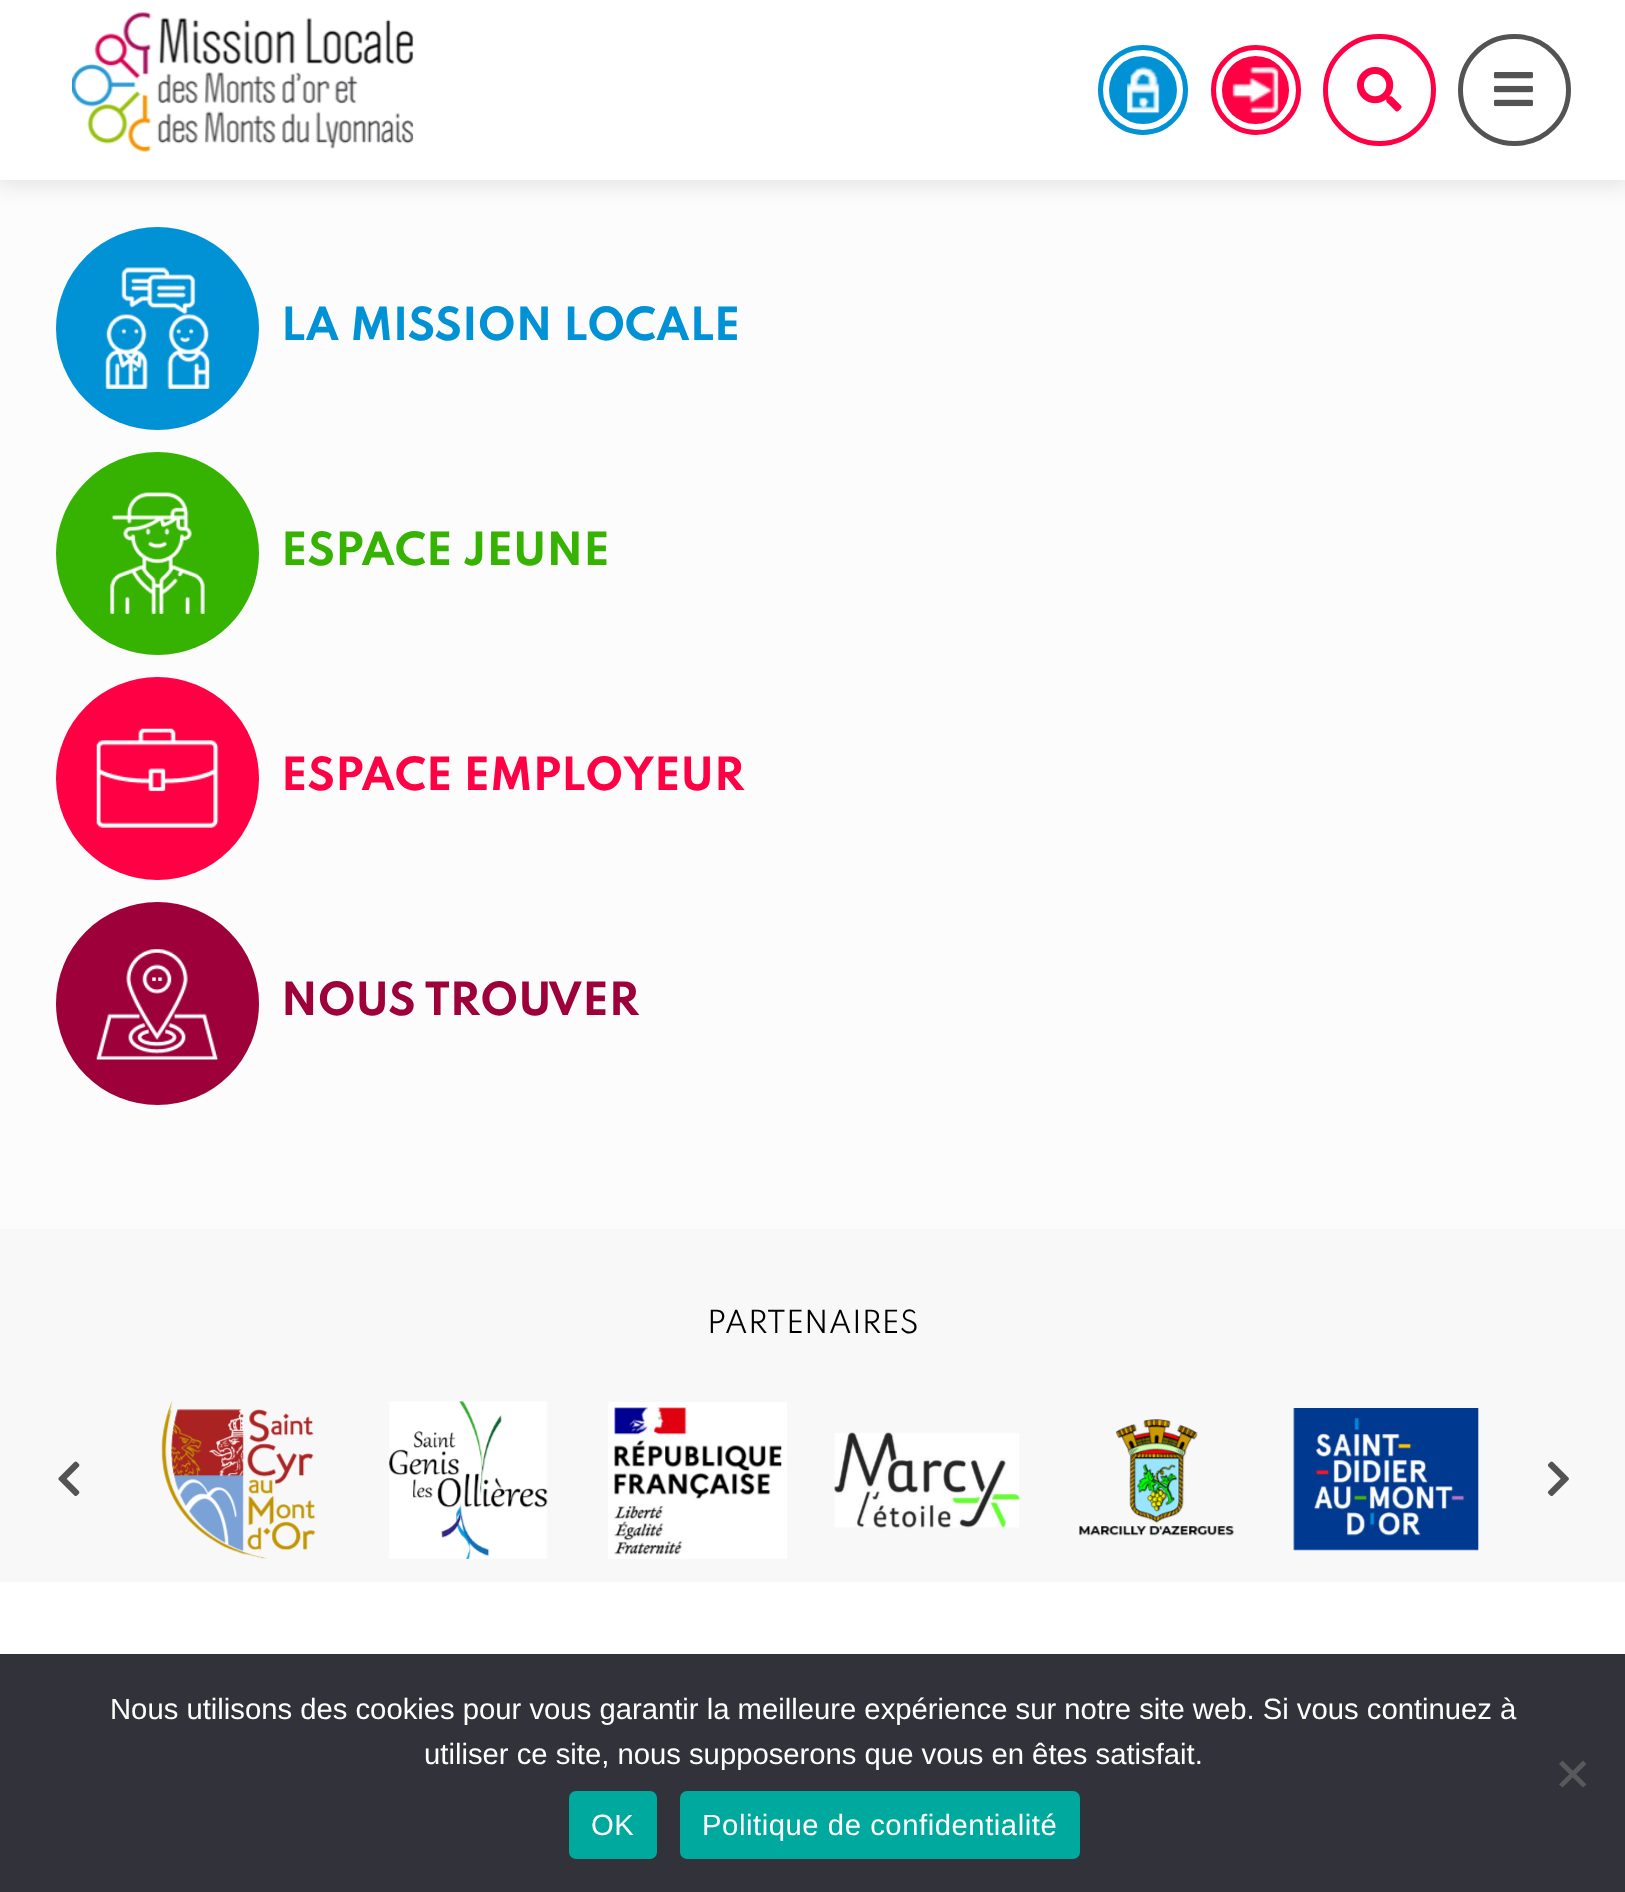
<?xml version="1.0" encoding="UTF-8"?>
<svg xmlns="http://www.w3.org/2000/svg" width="1625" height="1892">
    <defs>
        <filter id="blur1" x="-50%" y="-200%" width="200%" height="500%"><feGaussianBlur stdDeviation="11"/></filter>
    </defs>
    <rect width="100%" height="100%" fill="#FFFFFF"/>
    <rect x="0" y="180" width="1625" height="1049" fill="#FCFCFC"/>
    <rect x="-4" y="-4" width="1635" height="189" fill="#000000" fill-opacity="0.1" filter="url(#blur1)"/>
    <rect x="0" y="0" width="1625" height="180" fill="#FFFFFF"/>
    <image x="72" y="12" width="342" height="140" href="img_01.png"/>
    <circle cx="1143" cy="90" r="42.5" fill="none" stroke="#0092D5" stroke-width="5"/>
    <circle cx="1143" cy="90" r="34" fill="#0092D5"/>
    <image x="1127" y="67" width="33" height="47" href="img_02.png"/>
    <circle cx="1256" cy="90" r="42.5" fill="none" stroke="#FE0043" stroke-width="5"/>
    <rect x="1222" y="56" width="67" height="68" rx="33.5" fill="#FE0043"/>
    <image x="1232" y="67" width="47" height="47" href="img_03.png"/>
    <rect x="1325.5" y="36.5" width="108" height="107" rx="53.5" fill="none" stroke="#FE0043" stroke-width="5"/>
    <image x="1357" y="67" width="45" height="45" href="img_04.png"/>
    <rect x="1460.5" y="36.5" width="108" height="107" rx="53.5" fill="none" stroke="#535353" stroke-width="5"/>
    <image x="1494" y="72" width="39" height="35" href="img_05.png"/>
    <circle cx="157.5" cy="328.5" r="101.5" fill="#0092D5"/>
    <image x="105" y="267" width="105" height="122" href="img_06.png"/>
    <text x="281" y="340" font-family="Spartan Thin" font-size="40.5" font-weight="700" fill="#0092D5">LA MISSION LOCALE</text>
    <circle cx="157.5" cy="553.5" r="101.5" fill="#35B300"/>
    <image x="110" y="492" width="95" height="122" href="img_07.png"/>
    <text x="281" y="565" font-family="Spartan Thin" font-size="40.5" font-weight="700" fill="#35B300">ESPACE JEUNE</text>
    <circle cx="157.5" cy="778.5" r="101.5" fill="#FE0043"/>
    <image x="96" y="728" width="123" height="100" href="img_08.png"/>
    <text x="281" y="790" font-family="Spartan Thin" font-size="40.5" font-weight="700" fill="#FE0043">ESPACE EMPLOYEUR</text>
    <circle cx="157.5" cy="1003.5" r="101.5" fill="#9E003A"/>
    <image x="96" y="949" width="123" height="111" href="img_09.png"/>
    <text x="281" y="1015" font-family="Spartan Thin" font-size="40.5" font-weight="700" fill="#9E003A">NOUS TROUVER</text>
    <rect x="0" y="1229" width="1625" height="353" fill="#F8F8F8"/>
    <text x="707" y="1333" font-family="Spartan Thin" font-size="28.25" fill="#000000">PARTENAIRES</text>
    <image x="161" y="1401" width="155" height="158" href="img_10.png"/>
    <image x="389" y="1401" width="159" height="158" href="img_11.png"/>
    <image x="608" y="1402" width="179" height="157" href="img_12.png"/>
    <image x="834" y="1432" width="186" height="97" href="img_13.png"/>
    <image x="1079" y="1419" width="156" height="117" href="img_14.png"/>
    <image x="1293" y="1408" width="186" height="143" href="img_15.png"/>
    <image x="58" y="1461" width="22" height="35" href="img_16.png"/>
    <image x="1547" y="1461" width="22" height="35" href="img_17.png"/>
    <rect x="0" y="1654" width="1625" height="238" fill="#32323A"/>
    <text x="110" y="1719" font-family="Liberation Sans" font-size="29.25" fill="#FFFFFF">Nous utilisons des cookies pour vous garantir la meilleure expérience sur notre site web. Si vous continuez à</text>
    <text x="424" y="1764" font-family="Liberation Sans" font-size="29.25" fill="#FFFFFF">utiliser ce site, nous supposerons que vous en êtes satisfait.</text>
    <path d="M 1583 1760.5 L 1586.5 1764 L 1562.5 1787.5 L 1559 1784.5 Z" fill="#59595D"/>
    <path d="M 1559 1764 L 1562.5 1760.5 L 1586.5 1784.5 L 1583 1787.5 Z" fill="#59595D"/>
    <rect x="569" y="1791" width="88" height="68" rx="7" fill="#00A99D"/>
    <text x="591" y="1835" font-family="Liberation Sans" font-size="29.25" letter-spacing="0.55" fill="#FFFFFF">OK</text>
    <rect x="680" y="1791" width="400" height="68" rx="7" fill="#00A99D"/>
    <text x="702" y="1835" font-family="Liberation Sans" font-size="29.25" letter-spacing="0.55" fill="#FFFFFF">Politique de confidentialité</text>
</svg>
